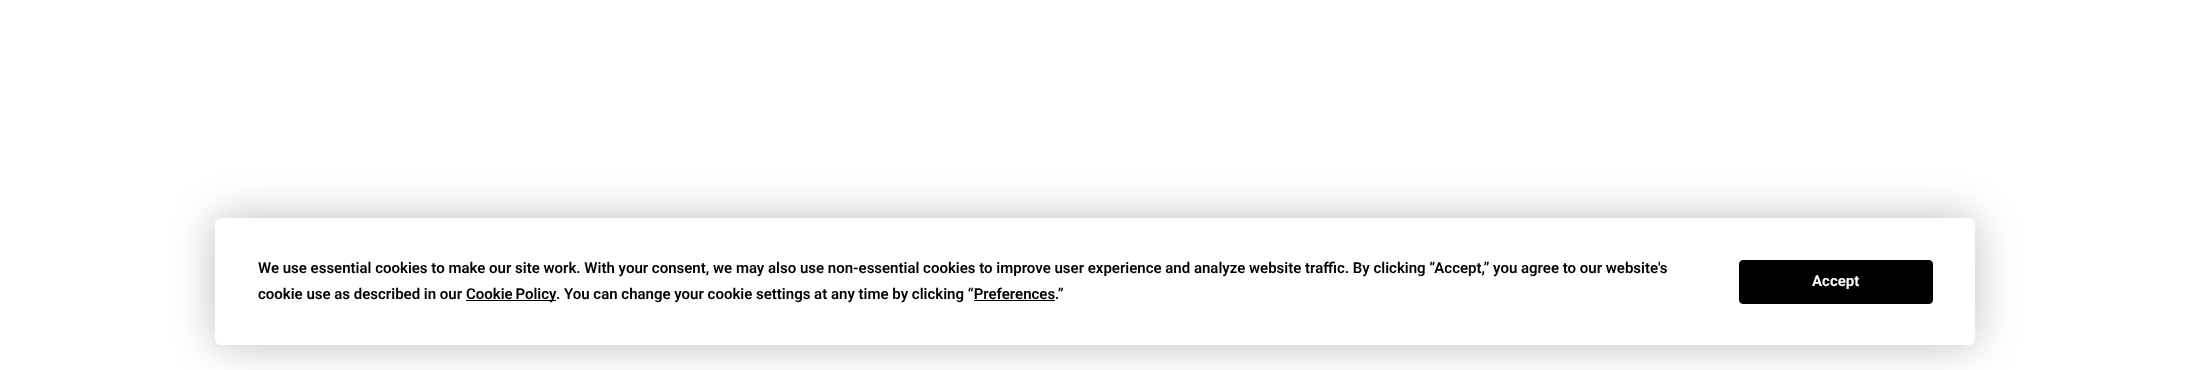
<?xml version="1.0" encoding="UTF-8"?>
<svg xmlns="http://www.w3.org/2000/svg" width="2190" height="370">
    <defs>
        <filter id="blur1" x="-50%" y="-200%" width="200%" height="500%"><feGaussianBlur stdDeviation="22"/></filter>
    </defs>
    <rect width="100%" height="100%" fill="#FFFFFF"/>
    <rect x="215" y="218" width="1760" height="127" rx="6" fill="#000000" fill-opacity="0.25" filter="url(#blur1)"/>
    <rect x="215" y="218" width="1760" height="127" rx="6" fill="#FFFFFF"/>
    <text font-family="Roboto" font-size="15" font-weight="600" fill="#000000">
        <tspan x="258" y="273">We use essential cookies to make our site work. With your consent, we may also use non-essential cookies to improve user experience and analyze website traffic. By clicking “Accept,” you agree to our website's</tspan>
        <tspan x="258" y="299">cookie use as described in our</tspan>
    </text>
    <rect x="466" y="300" width="90" height="1" fill="#000000"/>
    <text x="466" y="299" word-spacing="-1" font-family="Roboto" font-size="15" font-weight="600" fill="#000000">Cookie Policy</text>
    <text x="556" y="299" font-family="Roboto" font-size="15" font-weight="600" fill="#000000">. You can change your cookie settings at any time by clicking “Preferences.”</text>
    <rect x="974" y="300" width="81" height="1" fill="#000000"/>
    <rect x="1739.5" y="260.5" width="193" height="43" rx="3.5" fill="#000000" stroke="#000000"/>
    <text x="1812" y="286" font-family="Roboto" font-size="15" font-weight="700" fill="#FFFFFF">Accept</text>
</svg>
